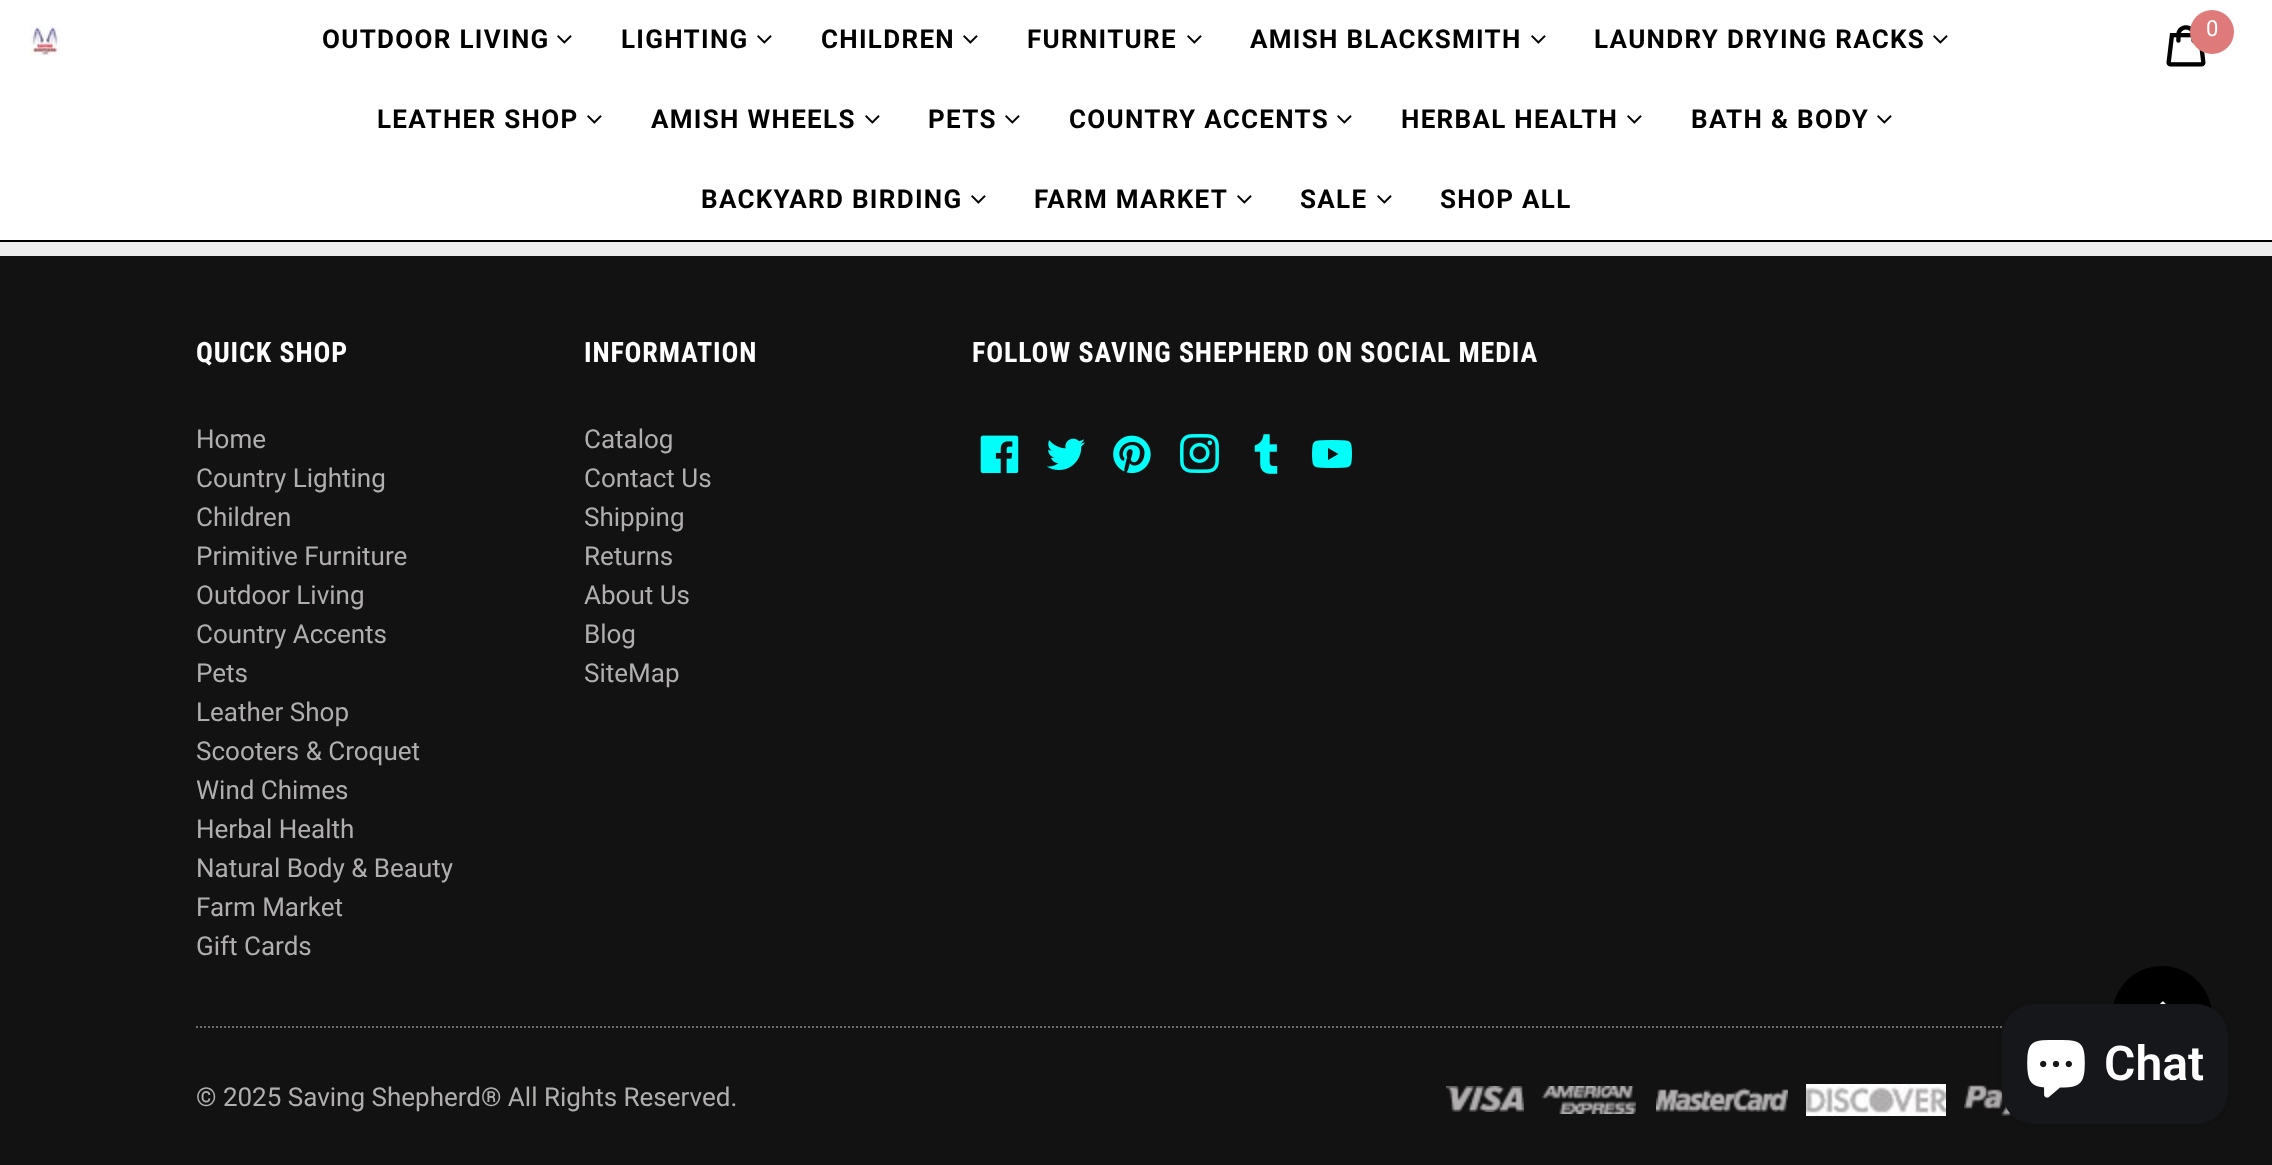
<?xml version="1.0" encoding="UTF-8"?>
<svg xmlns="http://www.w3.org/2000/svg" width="2272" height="1165">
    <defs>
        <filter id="blur1" x="-50%" y="-200%" width="200%" height="500%"><feGaussianBlur stdDeviation="5"/></filter>
    </defs>
    <rect width="100%" height="100%" fill="#131212"/>
    <rect x="0" y="0" width="2272" height="240" fill="#FFFFFF"/>
    <rect x="0" y="240" width="2272" height="2" fill="#000000"/>
    <image x="30" y="26" width="30" height="30" href="img_01.png"/>
    <text x="322" y="48" font-family="Roboto" font-size="26" font-weight="700" letter-spacing="1.3" fill="#010101">OUTDOOR LIVING</text>
    <image x="557" y="35" width="15" height="9" href="img_02.png"/>
    <text x="621" y="48" font-family="Roboto" font-size="26" font-weight="700" letter-spacing="1.3" fill="#010101">LIGHTING</text>
    <image x="757" y="35" width="15" height="9" href="img_02.png"/>
    <text x="821" y="48" font-family="Roboto" font-size="26" font-weight="700" letter-spacing="1.3" fill="#010101">CHILDREN</text>
    <image x="963" y="35" width="15" height="9" href="img_02.png"/>
    <text x="1027" y="48" font-family="Roboto" font-size="26" font-weight="700" letter-spacing="1.3" fill="#010101">FURNITURE</text>
    <image x="1187" y="35" width="15" height="9" href="img_02.png"/>
    <text x="1250" y="48" font-family="Roboto" font-size="26" font-weight="700" letter-spacing="1.3" fill="#010101">AMISH BLACKSMITH</text>
    <image x="1531" y="35" width="15" height="9" href="img_02.png"/>
    <text x="1594" y="48" font-family="Roboto" font-size="26" font-weight="700" letter-spacing="1.3" fill="#010101">LAUNDRY DRYING RACKS</text>
    <image x="1933" y="35" width="15" height="9" href="img_02.png"/>
    <text x="377" y="128" font-family="Roboto" font-size="26" font-weight="700" letter-spacing="1.3" fill="#010101">LEATHER SHOP</text>
    <image x="587" y="115" width="15" height="9" href="img_02.png"/>
    <text x="651" y="128" font-family="Roboto" font-size="26" font-weight="700" letter-spacing="1.3" fill="#010101">AMISH WHEELS</text>
    <image x="865" y="115" width="15" height="9" href="img_02.png"/>
    <text x="928" y="128" font-family="Roboto" font-size="26" font-weight="700" letter-spacing="1.3" fill="#010101">PETS</text>
    <image x="1005" y="115" width="15" height="9" href="img_02.png"/>
    <text x="1069" y="128" font-family="Roboto" font-size="26" font-weight="700" letter-spacing="1.3" fill="#010101">COUNTRY ACCENTS</text>
    <image x="1337" y="115" width="15" height="9" href="img_02.png"/>
    <text x="1401" y="128" font-family="Roboto" font-size="26" font-weight="700" letter-spacing="1.3" fill="#010101">HERBAL HEALTH</text>
    <image x="1627" y="115" width="15" height="9" href="img_02.png"/>
    <text x="1691" y="128" font-family="Roboto" font-size="26" font-weight="700" letter-spacing="1.3" fill="#010101">BATH &amp; BODY</text>
    <image x="1877" y="115" width="15" height="9" href="img_02.png"/>
    <text x="701" y="208" font-family="Roboto" font-size="26" font-weight="700" letter-spacing="1.3" fill="#010101">BACKYARD BIRDING</text>
    <image x="971" y="195" width="15" height="9" href="img_02.png"/>
    <text x="1034" y="208" font-family="Roboto" font-size="26" font-weight="700" letter-spacing="1.3" fill="#010101">FARM MARKET</text>
    <image x="1237" y="195" width="15" height="9" href="img_02.png"/>
    <text x="1300" y="208" font-family="Roboto" font-size="26" font-weight="700" letter-spacing="1.3" fill="#010101">SALE</text>
    <image x="1377" y="195" width="15" height="9" href="img_02.png"/>
    <text x="1440" y="208" font-family="Roboto" font-size="26" font-weight="700" letter-spacing="1.3" fill="#010101">SHOP ALL</text>
    <image x="2166" y="25" width="40" height="42" href="img_03.png"/>
    <circle cx="2212" cy="32" r="22" fill="#DF7A7B"/>
    <text x="2206" y="36" font-family="Roboto" font-size="22" fill="#FFFFFF">0</text>
    <rect x="0" y="242" width="2272" height="14" fill="#EEEEEE"/>
    <path d="M 196 1027 H 2076" fill="none" stroke="#6F6E6E" stroke-width="2" stroke-dasharray="2 2"/>
    <text x="196" y="362" font-family="Roboto Condensed" font-size="28" font-weight="700" letter-spacing="0.85" fill="#FFFFFF">QUICK SHOP</text>
    <text font-family="Roboto" font-size="26" fill="#B0AEAE">
        <tspan x="196" y="448">Home</tspan>
        <tspan x="196" y="487">Country Lighting</tspan>
        <tspan x="196" y="526">Children</tspan>
        <tspan x="196" y="565">Primitive Furniture</tspan>
        <tspan x="196" y="604">Outdoor Living</tspan>
        <tspan x="196" y="643">Country Accents</tspan>
        <tspan x="196" y="682">Pets</tspan>
        <tspan x="196" y="721">Leather Shop</tspan>
        <tspan x="196" y="760">Scooters &amp; Croquet</tspan>
        <tspan x="196" y="799">Wind Chimes</tspan>
        <tspan x="196" y="838">Herbal Health</tspan>
        <tspan x="196" y="877">Natural Body &amp; Beauty</tspan>
        <tspan x="196" y="916">Farm Market</tspan>
        <tspan x="196" y="955">Gift Cards</tspan>
    </text>
    <text x="584" y="362" font-family="Roboto Condensed" font-size="28" font-weight="700" letter-spacing="0.85" fill="#FFFFFF">INFORMATION</text>
    <text font-family="Roboto" font-size="26" fill="#B0AEAE">
        <tspan x="584" y="448">Catalog</tspan>
        <tspan x="584" y="487">Contact Us</tspan>
        <tspan x="584" y="526">Shipping</tspan>
        <tspan x="584" y="565">Returns</tspan>
        <tspan x="584" y="604">About Us</tspan>
        <tspan x="584" y="643">Blog</tspan>
        <tspan x="584" y="682">SiteMap</tspan>
    </text>
    <text x="972" y="362" font-family="Roboto Condensed" font-size="28" font-weight="700" letter-spacing="0.85" fill="#FFFFFF">FOLLOW SAVING SHEPHERD ON SOCIAL MEDIA</text>
    <image x="980" y="435" width="39" height="39" href="img_04.png"/>
    <image x="1046" y="438" width="39" height="32" href="img_05.png"/>
    <image x="1113" y="435" width="38" height="39" href="img_06.png"/>
    <image x="1180" y="434" width="39" height="39" href="img_07.png"/>
    <image x="1254" y="434" width="24" height="40" href="img_08.png"/>
    <image x="1312" y="440" width="40" height="28" href="img_09.png"/>
    <text x="196" y="1106" font-family="Roboto" font-size="26" fill="#B0AEAE">© 2025 Saving Shepherd® All Rights Reserved.</text>
    <image x="1446" y="1086" width="78" height="26" href="img_10.png"/>
    <image x="1542" y="1086" width="94" height="28" href="img_11.png"/>
    <image x="1656" y="1088" width="132" height="24" href="img_12.png"/>
    <image x="1806" y="1084" width="140" height="32" href="img_13.png"/>
    <image x="1964" y="1085" width="48" height="31" href="img_14.png"/>
    <circle cx="2162" cy="1016" r="50" fill="#000000"/>
    <image x="2160" y="1001" width="6" height="3" href="img_15.png"/>
    <rect x="2002" y="1004" width="226" height="120" rx="32" fill="#000000" fill-opacity="0.15" filter="url(#blur1)"/>
    <rect x="2002" y="1004" width="226" height="120" rx="32" fill="#15171A"/>
    <image x="2027" y="1040" width="58" height="58" href="img_16.png"/>
    <text x="2104" y="1080" font-family="Roboto" font-size="48" font-weight="600" fill="#FFFFFF">Chat</text>
</svg>
